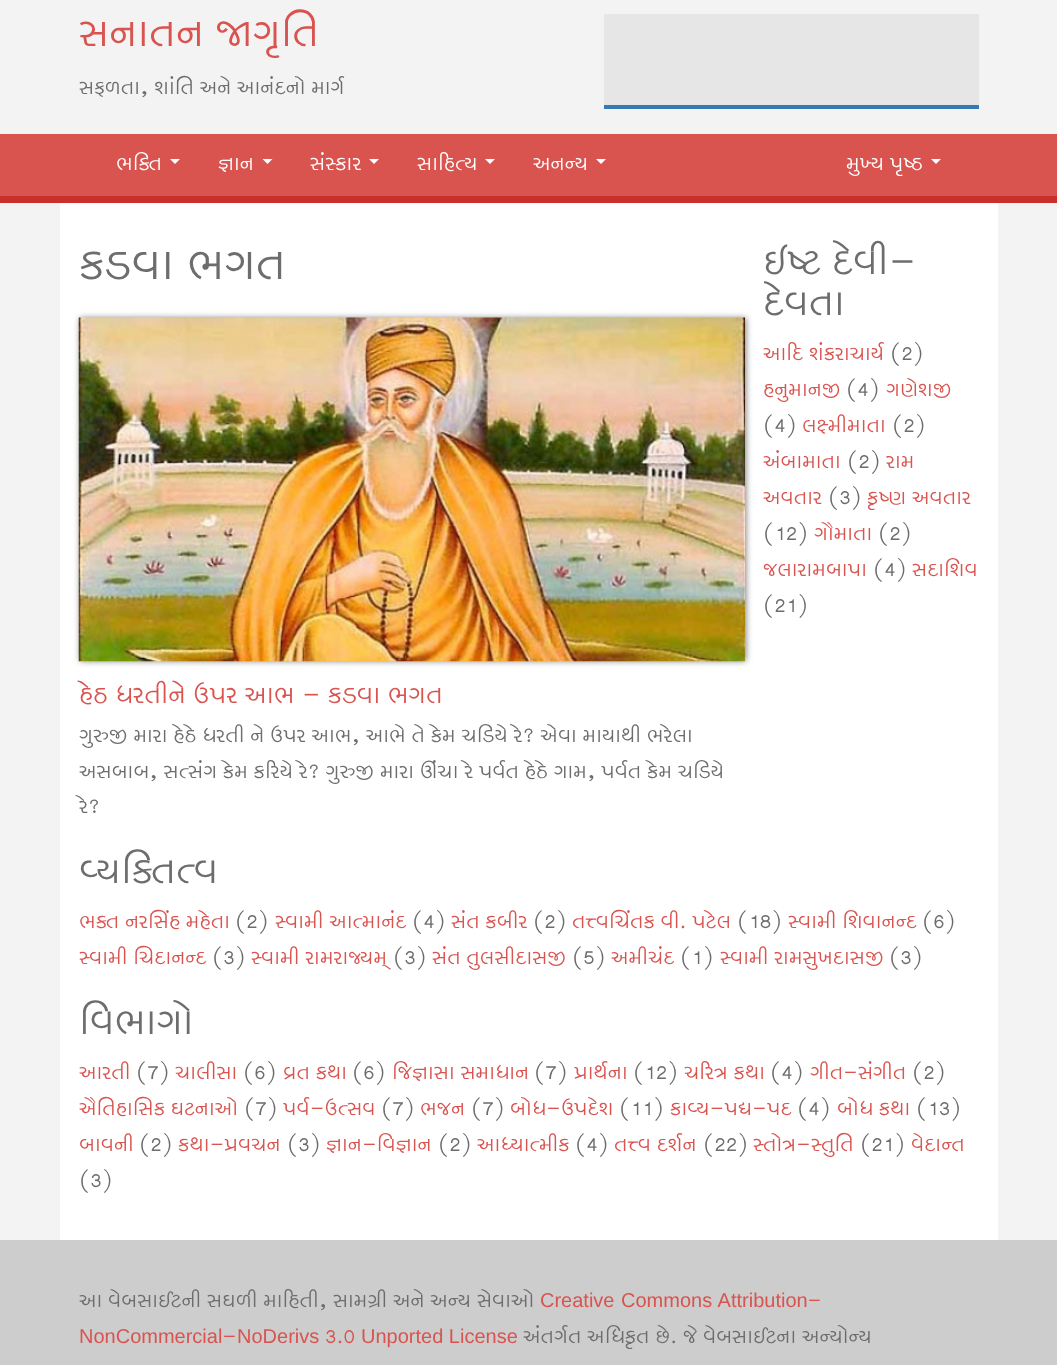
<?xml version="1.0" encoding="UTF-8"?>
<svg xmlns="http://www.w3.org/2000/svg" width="1057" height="1365">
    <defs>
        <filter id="blur1" x="-50%" y="-200%" width="200%" height="500%"><feGaussianBlur stdDeviation="3"/></filter>
    </defs>
    <rect width="100%" height="100%" fill="#F3F3F3"/>
    <text x="79" y="46" font-family="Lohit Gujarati" font-size="40" fill="#D9534F">સનાતન જાગૃતિ</text>
    <text x="79" y="94" font-family="Lohit Gujarati" font-size="20" fill="#6D6D6D">સફળતા, શાંતિ અને આનંદનો માર્ગ</text>
    <rect x="604" y="14" width="375" height="91" fill="#E6E6E6"/>
    <rect x="604" y="105" width="375" height="4" fill="#337AB7"/>
    <rect x="0" y="134" width="1057" height="62" fill="#D9534F"/>
    <rect x="0" y="196" width="1057" height="7" fill="#C9302C"/>
    <text x="116" y="170" font-family="Lohit Gujarati" font-size="20" fill="#FFFFFF">ભક્તિ</text>
    <path d="M 170 159 H 180 L 175 164 Z" fill="#FFFFFF"/>
    <text x="218" y="170" font-family="Lohit Gujarati" font-size="20" fill="#FFFFFF">જ્ઞાન</text>
    <path d="M 262.5 159 H 272.5 L 267.5 164 Z" fill="#FFFFFF"/>
    <text x="310" y="170" font-family="Lohit Gujarati" font-size="20" fill="#FFFFFF">સંસ્કાર</text>
    <path d="M 369 159 H 379 L 374 164 Z" fill="#FFFFFF"/>
    <text x="417" y="170" font-family="Lohit Gujarati" font-size="20" fill="#FFFFFF">સાહિત્ય</text>
    <path d="M 485 159 H 495 L 490 164 Z" fill="#FFFFFF"/>
    <text x="533" y="170" font-family="Lohit Gujarati" font-size="20" fill="#FFFFFF">અનન્ય</text>
    <path d="M 596 159 H 606 L 601 164 Z" fill="#FFFFFF"/>
    <text x="846" y="170" font-family="Lohit Gujarati" font-size="20" fill="#FFFFFF">મુખ્ય પૃષ્ઠ</text>
    <path d="M 931 159 H 941 L 936 164 Z" fill="#FFFFFF"/>
    <rect x="60" y="203" width="938" height="1037" fill="#FFFFFF"/>
    <text x="763" y="274" font-family="Lohit Gujarati" font-size="37.5" fill="#6D6D6D">ઇષ્ટ દેવી-</text>
    <rect x="80" y="318" width="666" height="343" fill="#000000" fill-opacity="0.5" filter="url(#blur1)"/>
    <text x="763" y="315" font-family="Lohit Gujarati" font-size="37.5" fill="#6D6D6D">દેવતા</text>
    <text x="763" y="360" font-family="Lohit Gujarati" font-size="20" fill="#D9534F">આદિ શંકરાચાર્ય</text>
    <text x="890" y="360" font-family="Lohit Gujarati" font-size="20" fill="#6D6D6D">(2)</text>
    <text x="763" y="396" font-family="Lohit Gujarati" font-size="20" fill="#D9534F">હનુમાનજી</text>
    <text x="846" y="396" font-family="Lohit Gujarati" font-size="20" fill="#6D6D6D">(4)</text>
    <text x="886" y="396" font-family="Lohit Gujarati" font-size="20" fill="#D9534F">ગણેશજી</text>
    <text x="763" y="432" font-family="Lohit Gujarati" font-size="20" fill="#6D6D6D">(4)</text>
    <text x="802" y="432" font-family="Lohit Gujarati" font-size="20" fill="#D9534F">લક્ષ્મીમાતા</text>
    <text x="892" y="432" font-family="Lohit Gujarati" font-size="20" fill="#6D6D6D">(2)</text>
    <text x="763" y="468" font-family="Lohit Gujarati" font-size="20" fill="#D9534F">અંબામાતા</text>
    <text x="847" y="468" font-family="Lohit Gujarati" font-size="20" fill="#6D6D6D">(2)</text>
    <text x="886" y="468" font-family="Lohit Gujarati" font-size="20" fill="#D9534F">રામ</text>
    <text x="763" y="504" font-family="Lohit Gujarati" font-size="20" fill="#D9534F">અવતાર</text>
    <text x="828" y="504" font-family="Lohit Gujarati" font-size="20" fill="#6D6D6D">(3)</text>
    <text x="867" y="504" font-family="Lohit Gujarati" font-size="20" fill="#D9534F">કૃષ્ણ અવતાર</text>
    <text x="763" y="540" font-family="Lohit Gujarati" font-size="20" fill="#6D6D6D">(12)</text>
    <text x="814" y="540" font-family="Lohit Gujarati" font-size="20" fill="#D9534F">ગૌમાતા</text>
    <text x="878" y="540" font-family="Lohit Gujarati" font-size="20" fill="#6D6D6D">(2)</text>
    <text x="763" y="576" font-family="Lohit Gujarati" font-size="20" fill="#D9534F">જલારામબાપા</text>
    <text x="873" y="576" font-family="Lohit Gujarati" font-size="20" fill="#6D6D6D">(4)</text>
    <text x="912" y="576" font-family="Lohit Gujarati" font-size="20" fill="#D9534F">સદાશિવ</text>
    <text x="763" y="612" font-family="Lohit Gujarati" font-size="20" fill="#6D6D6D">(21)</text>
    <text x="79" y="883" font-family="Lohit Gujarati" font-size="37.5" fill="#6D6D6D">વ્યક્તિત્વ</text>
    <text x="79" y="928" font-family="Lohit Gujarati" font-size="20" fill="#D9534F">ભક્ત નરસિંહ મહેતા</text>
    <text x="235" y="928" font-family="Lohit Gujarati" font-size="20" fill="#6D6D6D">(2)</text>
    <text x="275" y="928" font-family="Lohit Gujarati" font-size="20" fill="#D9534F">સ્વામી આત્માનંદ</text>
    <text x="412" y="928" font-family="Lohit Gujarati" font-size="20" fill="#6D6D6D">(4)</text>
    <text x="451" y="928" font-family="Lohit Gujarati" font-size="20" fill="#D9534F">સંત કબીર</text>
    <text x="533" y="928" font-family="Lohit Gujarati" font-size="20" fill="#6D6D6D">(2)</text>
    <text x="572" y="928" font-family="Lohit Gujarati" font-size="20" fill="#D9534F">તત્ત્વચિંતક વી. પટેલ</text>
    <text x="737" y="928" font-family="Lohit Gujarati" font-size="20" fill="#6D6D6D">(18)</text>
    <text x="788" y="928" font-family="Lohit Gujarati" font-size="20" fill="#D9534F">સ્વામી શિવાનન્દ</text>
    <text x="922" y="928" font-family="Lohit Gujarati" font-size="20" fill="#6D6D6D">(6)</text>
    <text x="79" y="964" font-family="Lohit Gujarati" font-size="20" fill="#D9534F">સ્વામી ચિદાનન્દ</text>
    <text x="212" y="964" font-family="Lohit Gujarati" font-size="20" fill="#6D6D6D">(3)</text>
    <text x="251" y="964" font-family="Lohit Gujarati" font-size="20" fill="#D9534F">સ્વામી રામરાજ્યમ્</text>
    <text x="393" y="964" font-family="Lohit Gujarati" font-size="20" fill="#6D6D6D">(3)</text>
    <text x="432" y="964" font-family="Lohit Gujarati" font-size="20" fill="#D9534F">સંત તુલસીદાસજી</text>
    <text x="572" y="964" font-family="Lohit Gujarati" font-size="20" fill="#6D6D6D">(5)</text>
    <text x="611" y="964" font-family="Lohit Gujarati" font-size="20" fill="#D9534F">અમીચંદ</text>
    <text x="680" y="964" font-family="Lohit Gujarati" font-size="20" fill="#6D6D6D">(1)</text>
    <text x="720" y="964" font-family="Lohit Gujarati" font-size="20" fill="#D9534F">સ્વામી રામસુખદાસજી</text>
    <text x="889" y="964" font-family="Lohit Gujarati" font-size="20" fill="#6D6D6D">(3)</text>
    <text x="79" y="1034" font-family="Lohit Gujarati" font-size="37.5" fill="#6D6D6D">વિભાગો</text>
    <text x="79" y="1079" font-family="Lohit Gujarati" font-size="20" fill="#D9534F">આરતી</text>
    <text x="136" y="1079" font-family="Lohit Gujarati" font-size="20" fill="#6D6D6D">(7)</text>
    <text x="175" y="1079" font-family="Lohit Gujarati" font-size="20" fill="#D9534F">ચાલીસા</text>
    <text x="243" y="1079" font-family="Lohit Gujarati" font-size="20" fill="#6D6D6D">(6)</text>
    <text x="283" y="1079" font-family="Lohit Gujarati" font-size="20" fill="#D9534F">વ્રત કથા</text>
    <text x="352" y="1079" font-family="Lohit Gujarati" font-size="20" fill="#6D6D6D">(6)</text>
    <text x="392" y="1079" font-family="Lohit Gujarati" font-size="20" fill="#D9534F">જિજ્ઞાસા સમાધાન</text>
    <text x="534" y="1079" font-family="Lohit Gujarati" font-size="20" fill="#6D6D6D">(7)</text>
    <text x="574" y="1079" font-family="Lohit Gujarati" font-size="20" fill="#D9534F">પ્રાર્થના</text>
    <text x="633" y="1079" font-family="Lohit Gujarati" font-size="20" fill="#6D6D6D">(12)</text>
    <text x="684" y="1079" font-family="Lohit Gujarati" font-size="20" fill="#D9534F">ચરિત્ર કથા</text>
    <text x="770" y="1079" font-family="Lohit Gujarati" font-size="20" fill="#6D6D6D">(4)</text>
    <text x="810" y="1079" font-family="Lohit Gujarati" font-size="20" fill="#D9534F">ગીત-સંગીત</text>
    <text x="912" y="1079" font-family="Lohit Gujarati" font-size="20" fill="#6D6D6D">(2)</text>
    <text x="79" y="1115" font-family="Lohit Gujarati" font-size="20" fill="#D9534F">ઐતિહાસિક ઘટનાઓ</text>
    <text x="244" y="1115" font-family="Lohit Gujarati" font-size="20" fill="#6D6D6D">(7)</text>
    <text x="283" y="1115" font-family="Lohit Gujarati" font-size="20" fill="#D9534F">પર્વ-ઉત્સવ</text>
    <text x="381" y="1115" font-family="Lohit Gujarati" font-size="20" fill="#6D6D6D">(7)</text>
    <text x="420" y="1115" font-family="Lohit Gujarati" font-size="20" fill="#D9534F">ભજન</text>
    <text x="471" y="1115" font-family="Lohit Gujarati" font-size="20" fill="#6D6D6D">(7)</text>
    <text x="510" y="1115" font-family="Lohit Gujarati" font-size="20" fill="#D9534F">બોધ-ઉપદેશ</text>
    <text x="619" y="1115" font-family="Lohit Gujarati" font-size="20" fill="#6D6D6D">(11)</text>
    <text x="670" y="1115" font-family="Lohit Gujarati" font-size="20" fill="#D9534F">કાવ્ય-પદ્ય-પદ</text>
    <text x="797" y="1115" font-family="Lohit Gujarati" font-size="20" fill="#6D6D6D">(4)</text>
    <text x="837" y="1115" font-family="Lohit Gujarati" font-size="20" fill="#D9534F">બોધ કથા</text>
    <text x="916" y="1115" font-family="Lohit Gujarati" font-size="20" fill="#6D6D6D">(13)</text>
    <text x="79" y="1151" font-family="Lohit Gujarati" font-size="20" fill="#D9534F">બાવની</text>
    <text x="139" y="1151" font-family="Lohit Gujarati" font-size="20" fill="#6D6D6D">(2)</text>
    <text x="178" y="1151" font-family="Lohit Gujarati" font-size="20" fill="#D9534F">કથા-પ્રવચન</text>
    <text x="287" y="1151" font-family="Lohit Gujarati" font-size="20" fill="#6D6D6D">(3)</text>
    <text x="326" y="1151" font-family="Lohit Gujarati" font-size="20" fill="#D9534F">જ્ઞાન-વિજ્ઞાન</text>
    <text x="438" y="1151" font-family="Lohit Gujarati" font-size="20" fill="#6D6D6D">(2)</text>
    <text x="477" y="1151" font-family="Lohit Gujarati" font-size="20" fill="#D9534F">આધ્યાત્મીક</text>
    <text x="575" y="1151" font-family="Lohit Gujarati" font-size="20" fill="#6D6D6D">(4)</text>
    <text x="614" y="1151" font-family="Lohit Gujarati" font-size="20" fill="#D9534F">તત્ત્વ દર્શન</text>
    <text x="703" y="1151" font-family="Lohit Gujarati" font-size="20" fill="#6D6D6D">(22)</text>
    <text x="753" y="1151" font-family="Lohit Gujarati" font-size="20" fill="#D9534F">સ્તોત્ર-સ્તુતિ</text>
    <text x="860" y="1151" font-family="Lohit Gujarati" font-size="20" fill="#6D6D6D">(21)</text>
    <text x="911" y="1151" font-family="Lohit Gujarati" font-size="20" fill="#D9534F">વેદાન્ત</text>
    <text x="79" y="1187" font-family="Lohit Gujarati" font-size="20" fill="#6D6D6D">(3)</text>
    <text x="79" y="279" font-family="Lohit Gujarati" font-size="45" fill="#6D6D6D">કડવા ભગત</text>
    <image x="78" y="317" width="667" height="345" href="img_01.png"/>
    <text x="79" y="703" font-family="Lohit Gujarati" font-size="25" fill="#D9534F">હેઠ ધરતીને ઉપર આભ - કડવા ભગત</text>
    <text font-family="Lohit Gujarati" font-size="20" fill="#6D6D6D">
        <tspan x="79" y="742">ગુરુજી મારા હેઠે ધરતી ને ઉપર આભ, આભે તે કેમ ચડિયે રે? એવા માયાથી ભરેલા</tspan>
        <tspan x="79" y="778">અસબાબ, સત્સંગ કેમ કરિયે રે? ગુરુજી મારા ઊંચા રે પર્વત હેઠે ગામ, પર્વત કેમ ચડિયે</tspan>
        <tspan x="79" y="813">રે?</tspan>
    </text>
    <rect x="0" y="1240" width="1057" height="125" fill="#CDCDCD"/>
    <text x="79" y="1307" font-family="Lohit Gujarati" font-size="20" fill="#6D6D6D">આ વેબસાઈટની સઘળી માહિતી, સામગ્રી અને અન્ય સેવાઓ</text>
    <text x="540" y="1307" word-spacing="1" font-family="Liberation Sans" font-size="20" fill="#D9534F">Creative Commons Attribution</text>
    <text x="807" y="1307" font-family="Lohit Gujarati" font-size="20" fill="#D9534F">-</text>
    <text x="79" y="1343" font-family="Liberation Sans" font-size="20" fill="#D9534F">NonCommercial</text>
    <text x="222" y="1343" font-family="Lohit Gujarati" font-size="20" fill="#D9534F">-</text>
    <text x="237" y="1343" font-family="Liberation Sans" font-size="20" fill="#D9534F">NoDerivs</text>
    <text x="325" y="1343" font-family="Lohit Gujarati" font-size="20" fill="#D9534F">3.0</text>
    <text x="361" y="1343" font-family="Liberation Sans" font-size="20" fill="#D9534F">Unported License</text>
    <text x="523" y="1343" font-family="Lohit Gujarati" font-size="20" fill="#6D6D6D">અંતર્ગત અધિકૃત છે. જે વેબસાઈટના અન્યોન્ય</text>
</svg>
